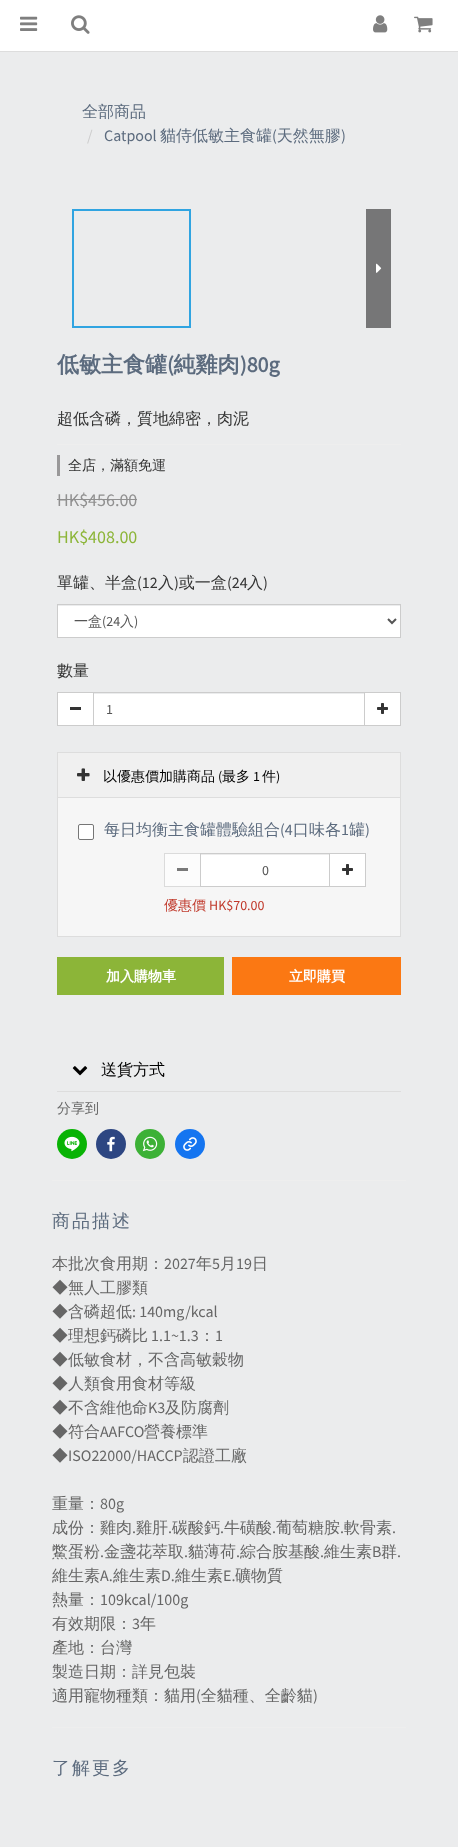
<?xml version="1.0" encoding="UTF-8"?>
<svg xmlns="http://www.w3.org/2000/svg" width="458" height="1847">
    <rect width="100%" height="100%" fill="#EBECED"/>
    <rect x="0" y="0" width="458" height="51" fill="#FFFFFF"/>
    <rect x="0" y="51" width="458" height="1" fill="#DDDDDD"/>
    <image x="20" y="16" width="18" height="15" href="img_01.png"/>
    <image x="71" y="15" width="19" height="19" href="img_02.png"/>
    <image x="373" y="15" width="15" height="18" href="img_03.png"/>
    <image x="414" y="16" width="19" height="17" href="img_04.png"/>
    <text x="82" y="117" font-family="WenQuanYi Zen Hei" font-size="16" font-weight="500" fill="#5C6B7E">全部商品</text>
    <text x="87" y="141" font-family="Source Sans Pro" font-size="16" fill="#CCCCCC">/</text>
    <text x="104" y="141" font-family="Source Sans Pro" font-size="16" fill="#5C6B7E">Catpool</text>
    <text x="160" y="141" font-family="WenQuanYi Zen Hei" font-size="16" font-weight="500" fill="#5C6B7E">貓侍低敏主食罐 天然無膠</text>
    <text x="272" y="141" font-family="Source Sans Pro" font-size="16" fill="#5C6B7E">(</text>
    <text x="341" y="141" font-family="Source Sans Pro" font-size="16" fill="#5C6B7E">)</text>
    <rect x="73" y="210" width="117" height="117" fill="none" stroke="#30A4E1" stroke-width="2"/>
    <rect x="366" y="209" width="25" height="119" fill="#767677"/>
    <image x="376" y="263" width="6" height="10" href="img_05.png"/>
    <text x="57" y="372" font-family="WenQuanYi Zen Hei" font-size="22" font-weight="700" fill="#5C6B7E">低敏主食罐 純雞肉</text>
    <text x="167" y="372" font-family="Source Sans Pro" font-size="22" font-weight="700" fill="#5C6B7E">(</text>
    <text x="240" y="372" font-family="Source Sans Pro" font-size="22" font-weight="700" fill="#5C6B7E">)80g</text>
    <text x="57" y="424" font-family="WenQuanYi Zen Hei" font-size="16" font-weight="500" fill="#333333">超低含磷，質地綿密，肉泥</text>
    <rect x="57" y="444" width="344" height="1" fill="#EEEEEE"/>
    <rect x="57" y="455" width="3" height="21" fill="#999899"/>
    <text x="68" y="470" font-family="WenQuanYi Zen Hei" font-size="14" font-weight="500" fill="#333333">全店，滿額免運</text>
    <text x="57" y="506" font-family="Source Sans Pro" font-size="18" fill="#909090">HK$456.00</text>
    <rect x="57" y="499" width="80" height="1" fill="#909090"/>
    <text x="57" y="543" font-family="Source Sans Pro" font-size="18" fill="#8CB538">HK$408.00</text>
    <text x="57" y="588" font-family="WenQuanYi Zen Hei" font-size="16" font-weight="500" fill="#333333">單罐、半盒</text>
    <text x="137" y="588" font-family="Source Sans Pro" font-size="16" fill="#333333">(12</text>
    <text x="158" y="588" font-family="WenQuanYi Zen Hei" font-size="16" font-weight="500" fill="#333333">入 或一盒</text>
    <text x="247" y="588" font-family="WenQuanYi Zen Hei" font-size="16" font-weight="500" fill="#333333">入</text>
    <text x="174" y="588" font-family="Source Sans Pro" font-size="16" fill="#333333">)</text>
    <text x="227" y="588" font-family="Source Sans Pro" font-size="16" fill="#333333">(24</text>
    <text x="263" y="588" font-family="Source Sans Pro" font-size="16" fill="#333333">)</text>
    <rect x="58" y="606" width="342" height="31" fill="#FFFFFF"/>
    <rect x="57.5" y="604.5" width="343" height="33" fill="none" stroke="#CCCCCC"/>
    <path d="M 388 619 L 392 623 L 396 619" fill="none" stroke="#555555" stroke-width="2"/>
    <text x="74" y="626" font-family="WenQuanYi Zen Hei" font-size="14" font-weight="500" fill="#555555">一盒</text>
    <text x="102" y="626" font-family="Source Sans Pro" font-size="14" fill="#555555">(24</text>
    <text x="120" y="626" font-family="WenQuanYi Zen Hei" font-size="14" font-weight="500" fill="#555555">入</text>
    <text x="134" y="626" font-family="Source Sans Pro" font-size="14" fill="#555555">)</text>
    <text x="57" y="676" font-family="WenQuanYi Zen Hei" font-size="16" font-weight="500" fill="#333333">數量</text>
    <rect x="57.5" y="692.5" width="36" height="33" fill="#FFFFFF" stroke="#CCCCCC"/>
    <rect x="70" y="707" width="11" height="3" fill="#333333"/>
    <rect x="94" y="694" width="270" height="31" fill="#FFFFFF"/>
    <rect x="93.5" y="692.5" width="271" height="33" fill="none" stroke="#CCCCCC"/>
    <text x="106" y="714" font-family="Source Sans Pro" font-size="14" fill="#555555">1</text>
    <rect x="364.5" y="692.5" width="36" height="33" fill="#FFFFFF" stroke="#CCCCCC"/>
    <image x="377" y="703" width="11" height="11" href="img_06.png"/>
    <rect x="58" y="753" width="342" height="44" fill="#F0F0F0"/>
    <rect x="57" y="752" width="344" height="1" fill="#DDDDDD"/>
    <rect x="400" y="752" width="1" height="45" fill="#DDDDDD"/>
    <rect x="57" y="752" width="1" height="45" fill="#DDDDDD"/>
    <image x="77" y="768" width="13" height="13" href="img_07.png"/>
    <text x="103" y="781" font-family="WenQuanYi Zen Hei" font-size="14" font-weight="500" fill="#000000">以優惠價加購商品</text>
    <text x="218" y="781" font-family="Source Sans Pro" font-size="14" fill="#000000">(</text>
    <text x="222" y="781" font-family="WenQuanYi Zen Hei" font-size="14" font-weight="500" fill="#000000">最多</text>
    <text x="253" y="781" font-family="Source Sans Pro" font-size="14" fill="#000000">1</text>
    <text x="262" y="781" font-family="WenQuanYi Zen Hei" font-size="14" font-weight="500" fill="#000000">件</text>
    <text x="276" y="781" font-family="Source Sans Pro" font-size="14" fill="#000000">)</text>
    <rect x="57.5" y="797.5" width="343" height="139" fill="#F6F6F6" stroke="#DDDDDD"/>
    <rect x="78.5" y="824.5" width="15" height="15" rx="1.5" fill="#FFFFFF" stroke="#767676"/>
    <text x="104" y="835" font-family="WenQuanYi Zen Hei" font-size="16" font-weight="500" fill="#5C6B7E">每日均衡主食罐體驗組合</text>
    <text x="280" y="835" font-family="Source Sans Pro" font-size="16" fill="#5C6B7E">(4</text>
    <text x="293" y="835" font-family="WenQuanYi Zen Hei" font-size="16" font-weight="500" fill="#5C6B7E">口味各</text>
    <text x="341" y="835" font-family="Source Sans Pro" font-size="16" fill="#5C6B7E">1</text>
    <text x="349" y="835" font-family="WenQuanYi Zen Hei" font-size="16" font-weight="500" fill="#5C6B7E">罐</text>
    <text x="365" y="835" font-family="Source Sans Pro" font-size="16" fill="#5C6B7E">)</text>
    <rect x="164.5" y="853.5" width="36" height="33" fill="#FCFCFC" stroke="#DBDBDB"/>
    <rect x="177" y="868" width="11" height="3" fill="#797979"/>
    <rect x="201" y="855" width="128" height="31" fill="#FFFFFF"/>
    <rect x="201" y="854" width="128" height="1" fill="#ECECEC"/>
    <rect x="200.5" y="853.5" width="129" height="33" fill="none" stroke="#CCCCCC"/>
    <text x="262" y="875" font-family="Source Sans Pro" font-size="14" fill="#555555">0</text>
    <rect x="329.5" y="853.5" width="36" height="33" fill="#FFFFFF" stroke="#CCCCCC"/>
    <image x="342" y="864" width="11" height="11" href="img_06.png"/>
    <text x="164" y="910" font-family="WenQuanYi Zen Hei" font-size="14" font-weight="500" fill="#C0392B">優惠價</text>
    <text x="209" y="910" font-family="Source Sans Pro" font-size="14" fill="#C0392B">HK$70.00</text>
    <rect x="57" y="957" width="167" height="38" fill="#8CB538"/>
    <text x="106" y="981" font-family="WenQuanYi Zen Hei" font-size="14" font-weight="700" fill="#FFFFFF">加入購物車</text>
    <rect x="232" y="957" width="169" height="38" fill="#FB7813"/>
    <text x="289" y="981" font-family="WenQuanYi Zen Hei" font-size="14" font-weight="700" fill="#FFFFFF">立即購買</text>
    <rect x="57" y="1091" width="344" height="1" fill="#DDDDDD"/>
    <image x="72" y="1066" width="16" height="10" href="img_08.png"/>
    <text x="101" y="1075" font-family="WenQuanYi Zen Hei" font-size="16" font-weight="500" fill="#000000">送貨方式</text>
    <text x="57" y="1113" font-family="WenQuanYi Zen Hei" font-size="14" font-weight="500" fill="#666666">分享到</text>
    <circle cx="72" cy="1144" r="15" fill="#09B305"/>
    <image x="64" y="1136" width="16" height="16" href="img_09.png"/>
    <circle cx="111" cy="1144" r="15" fill="#2D4682"/>
    <image x="107" y="1136" width="8" height="16" href="img_10.png"/>
    <circle cx="150" cy="1144" r="15" fill="#3CB136"/>
    <image x="142" y="1136" width="16" height="16" href="img_11.png"/>
    <circle cx="190" cy="1144" r="15" fill="#1575F0"/>
    <image x="183" y="1137" width="14" height="14" href="img_12.png"/>
    <rect x="52" y="1180" width="354" height="1" fill="#EEEEEE"/>
    <text x="52" y="1227" font-family="WenQuanYi Zen Hei" font-size="18" font-weight="500" letter-spacing="2" fill="#5C6B7E">商品描述</text>
    <text x="52" y="1269" font-family="WenQuanYi Zen Hei" font-size="16" font-weight="500" fill="#666666">本批次食用期：</text>
    <text x="164" y="1269" font-family="Source Sans Pro" font-size="16" fill="#666666">2027</text>
    <text x="196" y="1269" font-family="WenQuanYi Zen Hei" font-size="16" font-weight="500" fill="#666666">年</text>
    <text x="212" y="1269" font-family="Source Sans Pro" font-size="16" fill="#666666">5</text>
    <text x="220" y="1269" font-family="WenQuanYi Zen Hei" font-size="16" font-weight="500" fill="#666666">月</text>
    <text x="236" y="1269" font-family="Source Sans Pro" font-size="16" fill="#666666">19</text>
    <text x="252" y="1269" font-family="WenQuanYi Zen Hei" font-size="16" font-weight="500" fill="#666666">日</text>
    <text font-family="WenQuanYi Zen Hei" font-size="16" font-weight="500" fill="#666666">
        <tspan x="52" y="1293">◆無人工膠類</tspan>
        <tspan x="52" y="1317">◆含磷超低</tspan>
    </text>
    <text x="132" y="1317" font-family="Source Sans Pro" font-size="16" fill="#666666">: 140mg/kcal</text>
    <text x="52" y="1341" font-family="WenQuanYi Zen Hei" font-size="16" font-weight="500" fill="#666666">◆理想鈣磷比</text>
    <text x="151" y="1341" font-family="Source Sans Pro" font-size="16" fill="#666666">1.1~1.3</text>
    <text x="199" y="1341" font-family="WenQuanYi Zen Hei" font-size="16" font-weight="500" fill="#666666">：</text>
    <text x="215" y="1341" font-family="Source Sans Pro" font-size="16" fill="#666666">1</text>
    <text font-family="WenQuanYi Zen Hei" font-size="16" font-weight="500" fill="#666666">
        <tspan x="52" y="1365">◆低敏食材，不含高敏穀物</tspan>
        <tspan x="52" y="1389">◆人類食用食材等級</tspan>
        <tspan x="52" y="1413">◆不含維他命</tspan>
    </text>
    <text x="148" y="1413" font-family="Source Sans Pro" font-size="16" fill="#666666">K3</text>
    <text x="165" y="1413" font-family="WenQuanYi Zen Hei" font-size="16" font-weight="500" fill="#666666">及防腐劑</text>
    <text x="52" y="1437" font-family="WenQuanYi Zen Hei" font-size="16" font-weight="500" fill="#666666">◆符合</text>
    <text x="100" y="1437" font-family="Source Sans Pro" font-size="16" fill="#666666">AAFCO</text>
    <text x="144" y="1437" font-family="WenQuanYi Zen Hei" font-size="16" font-weight="500" fill="#666666">營養標準</text>
    <text x="52" y="1461" font-family="WenQuanYi Zen Hei" font-size="16" font-weight="500" fill="#666666">◆</text>
    <text x="68" y="1461" font-family="Source Sans Pro" font-size="16" fill="#666666">ISO22000/HACCP</text>
    <text x="183" y="1461" font-family="WenQuanYi Zen Hei" font-size="16" font-weight="500" fill="#666666">認證工廠</text>
    <text x="52" y="1509" font-family="WenQuanYi Zen Hei" font-size="16" font-weight="500" fill="#666666">重量：</text>
    <text x="100" y="1509" font-family="Source Sans Pro" font-size="16" fill="#666666">80g</text>
    <text x="52" y="1533" font-family="WenQuanYi Zen Hei" font-size="16" font-weight="500" fill="#666666">成份：雞肉</text>
    <text x="132" y="1533" font-family="Source Sans Pro" font-size="16" fill="#666666">.</text>
    <text x="136" y="1533" font-family="WenQuanYi Zen Hei" font-size="16" font-weight="500" fill="#666666">雞肝</text>
    <text x="168" y="1533" font-family="Source Sans Pro" font-size="16" fill="#666666">.</text>
    <text x="172" y="1533" font-family="WenQuanYi Zen Hei" font-size="16" font-weight="500" fill="#666666">碳酸鈣</text>
    <text x="220" y="1533" font-family="Source Sans Pro" font-size="16" fill="#666666">.</text>
    <text x="224" y="1533" font-family="WenQuanYi Zen Hei" font-size="16" font-weight="500" fill="#666666">牛磺酸</text>
    <text x="272" y="1533" font-family="Source Sans Pro" font-size="16" fill="#666666">.</text>
    <text x="276" y="1533" font-family="WenQuanYi Zen Hei" font-size="16" font-weight="500" fill="#666666">葡萄糖胺</text>
    <text x="340" y="1533" font-family="Source Sans Pro" font-size="16" fill="#666666">.</text>
    <text x="344" y="1533" font-family="WenQuanYi Zen Hei" font-size="16" font-weight="500" fill="#666666">軟骨素</text>
    <text x="392" y="1533" font-family="Source Sans Pro" font-size="16" fill="#666666">.</text>
    <text x="52" y="1557" font-family="WenQuanYi Zen Hei" font-size="16" font-weight="500" fill="#666666">鱉蛋粉</text>
    <text x="100" y="1557" font-family="Source Sans Pro" font-size="16" fill="#666666">.</text>
    <text x="104" y="1557" font-family="WenQuanYi Zen Hei" font-size="16" font-weight="500" fill="#666666">金盞花萃取</text>
    <text x="184" y="1557" font-family="Source Sans Pro" font-size="16" fill="#666666">.</text>
    <text x="188" y="1557" font-family="WenQuanYi Zen Hei" font-size="16" font-weight="500" fill="#666666">貓薄荷</text>
    <text x="236" y="1557" font-family="Source Sans Pro" font-size="16" fill="#666666">.</text>
    <text x="240" y="1557" font-family="WenQuanYi Zen Hei" font-size="16" font-weight="500" fill="#666666">綜合胺基酸</text>
    <text x="320" y="1557" font-family="Source Sans Pro" font-size="16" fill="#666666">.</text>
    <text x="324" y="1557" font-family="WenQuanYi Zen Hei" font-size="16" font-weight="500" fill="#666666">維生素</text>
    <text x="372" y="1557" font-family="Source Sans Pro" font-size="16" fill="#666666">B</text>
    <text x="381" y="1557" font-family="WenQuanYi Zen Hei" font-size="16" font-weight="500" fill="#666666">群</text>
    <text x="397" y="1557" font-family="Source Sans Pro" font-size="16" fill="#666666">.</text>
    <text x="52" y="1581" font-family="WenQuanYi Zen Hei" font-size="16" font-weight="500" fill="#666666">維生素</text>
    <text x="100" y="1581" font-family="Source Sans Pro" font-size="16" fill="#666666">A.</text>
    <text x="113" y="1581" font-family="WenQuanYi Zen Hei" font-size="16" font-weight="500" fill="#666666">維生素</text>
    <text x="161" y="1581" font-family="Source Sans Pro" font-size="16" fill="#666666">D.</text>
    <text x="175" y="1581" font-family="WenQuanYi Zen Hei" font-size="16" font-weight="500" fill="#666666">維生素</text>
    <text x="223" y="1581" font-family="Source Sans Pro" font-size="16" fill="#666666">E.</text>
    <text x="235" y="1581" font-family="WenQuanYi Zen Hei" font-size="16" font-weight="500" fill="#666666">礦物質</text>
    <text x="52" y="1605" font-family="WenQuanYi Zen Hei" font-size="16" font-weight="500" fill="#666666">熱量：</text>
    <text x="100" y="1605" font-family="Source Sans Pro" font-size="16" fill="#666666">109kcal/100g</text>
    <text x="52" y="1629" font-family="WenQuanYi Zen Hei" font-size="16" font-weight="500" fill="#666666">有效期限：</text>
    <text x="132" y="1629" font-family="Source Sans Pro" font-size="16" fill="#666666">3</text>
    <text x="140" y="1629" font-family="WenQuanYi Zen Hei" font-size="16" font-weight="500" fill="#666666">年</text>
    <text font-family="WenQuanYi Zen Hei" font-size="16" font-weight="500" fill="#666666">
        <tspan x="52" y="1653">產地：台灣</tspan>
        <tspan x="52" y="1677">製造日期：詳見包裝</tspan>
        <tspan x="52" y="1701">適用寵物種類：貓用 全貓種、全齡貓</tspan>
    </text>
    <text x="196" y="1701" font-family="Source Sans Pro" font-size="16" fill="#666666">(</text>
    <text x="313" y="1701" font-family="Source Sans Pro" font-size="16" fill="#666666">)</text>
    <rect x="52" y="1727" width="354" height="1" fill="#EEEEEE"/>
    <text x="52" y="1774" font-family="WenQuanYi Zen Hei" font-size="18" font-weight="500" letter-spacing="2" fill="#5C6B7E">了解更多</text>
</svg>
